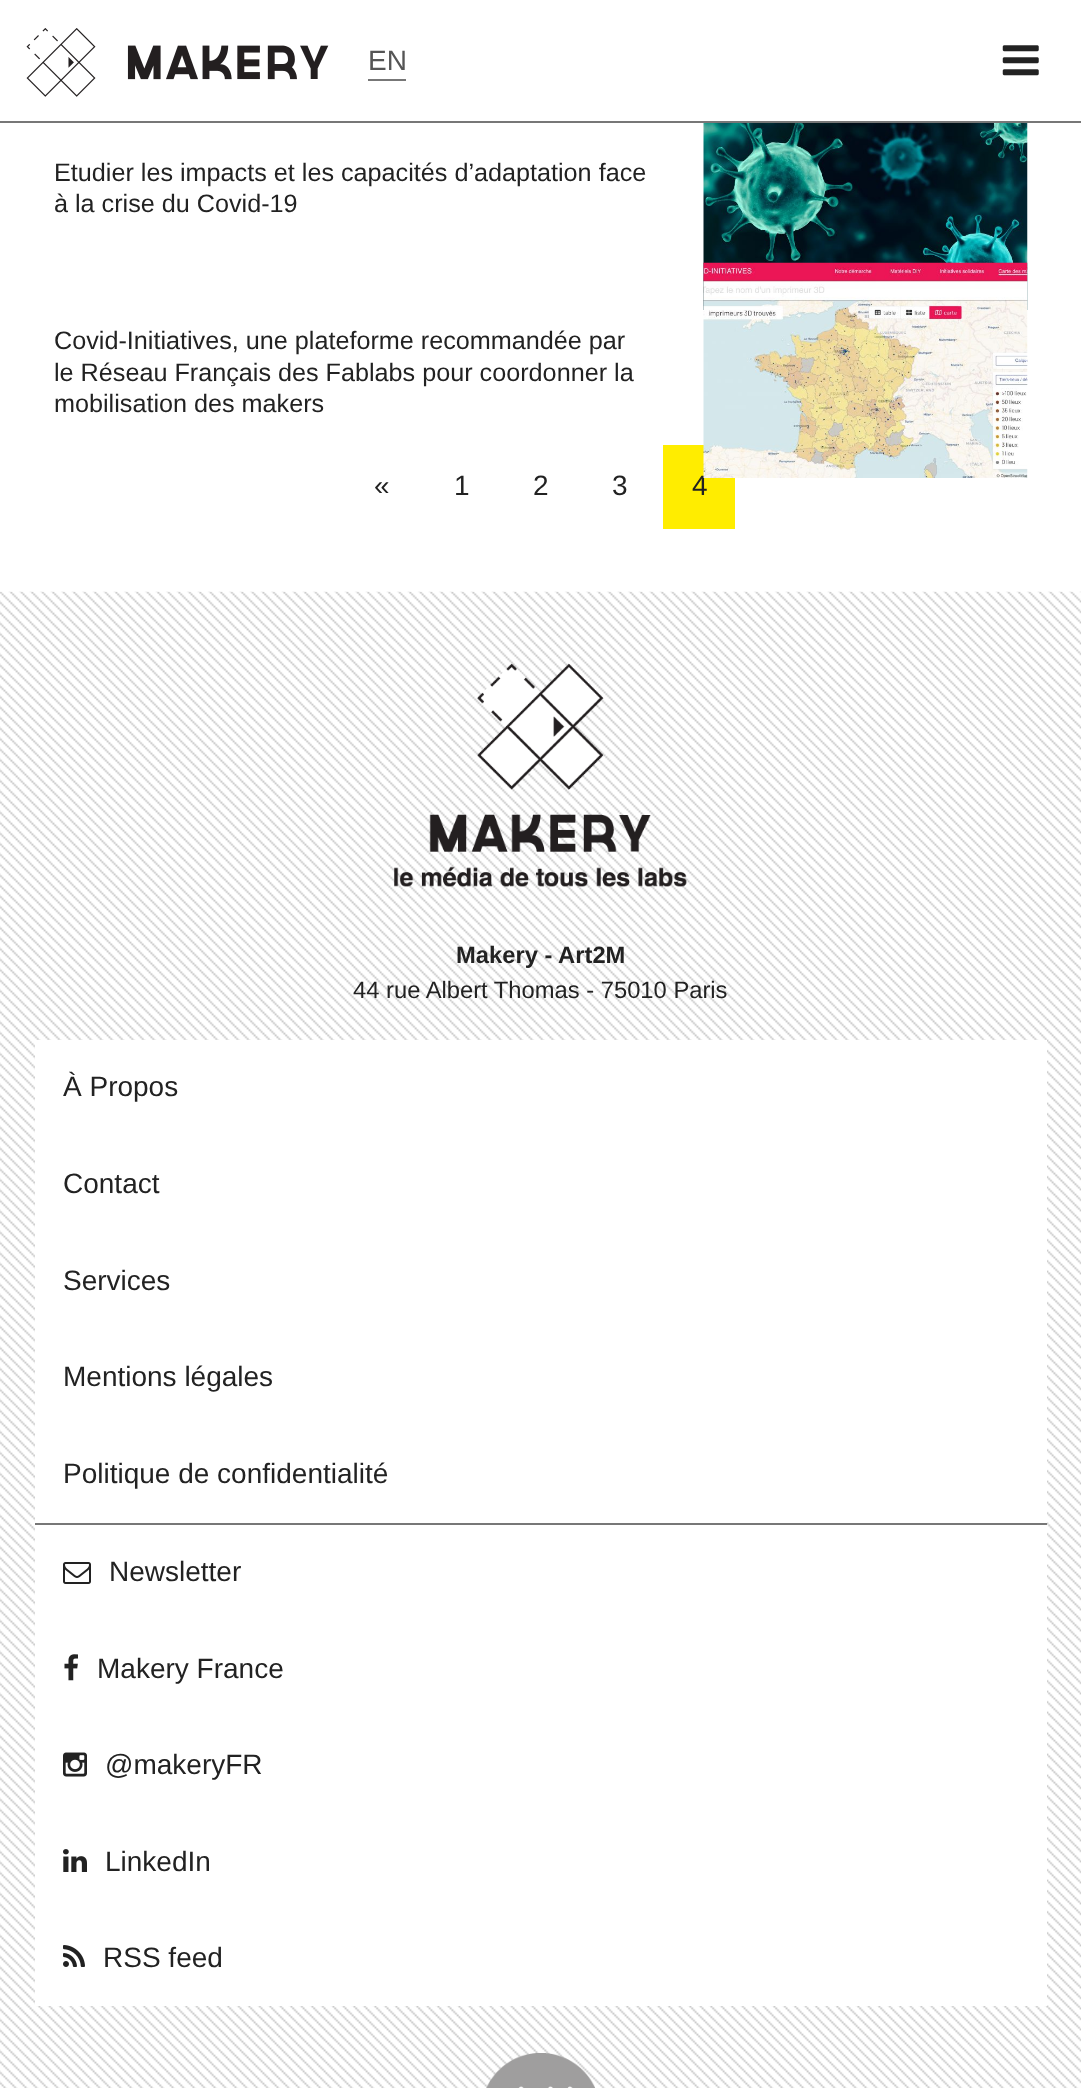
<?xml version="1.0" encoding="UTF-8"?>
<svg xmlns="http://www.w3.org/2000/svg" width="1081" height="2088">
    <rect width="100%" height="100%" fill="#FFFFFF"/>
    <rect x="0" y="121" width="1081" height="2" fill="#777777"/>
    <image x="26" y="28" width="303" height="69" href="img_01.png"/>
    <text x="368" y="70" font-family="Liberation Sans" font-size="28" fill="#555555">EN</text>
    <rect x="368" y="79" width="38" height="2" fill="#777777"/>
    <image x="1002" y="45" width="37" height="31" href="img_02.png"/>
    <text font-family="Liberation Sans" font-size="25.2" fill="#222222">
        <tspan x="54" y="181">Etudier les impacts et les capacités d’adaptation face</tspan>
        <tspan x="54" y="212">à la crise du Covid-19</tspan>
    </text>
    <image x="703" y="123" width="325" height="187" href="img_03.png"/>
    <text font-family="Liberation Sans" font-size="25.2" fill="#222222">
        <tspan x="54" y="349">Covid-Initiatives, une plateforme recommandée par</tspan>
        <tspan x="54" y="381">le Réseau Français des Fablabs pour coordonner la</tspan>
        <tspan x="54" y="412">mobilisation des makers</tspan>
    </text>
    <rect x="663" y="445" width="72" height="84" fill="#FFED00"/>
    <text x="692" y="495" font-family="Liberation Sans" font-size="28" fill="#222222">4</text>
    <image x="703" y="262" width="325" height="216" href="img_04.png"/>
    <text x="374" y="495" font-family="Liberation Sans" font-size="28" fill="#222222">«</text>
    <text x="454" y="495" font-family="Liberation Sans" font-size="28" fill="#222222">1</text>
    <text x="533" y="495" font-family="Liberation Sans" font-size="28" fill="#222222">2</text>
    <text x="612" y="495" font-family="Liberation Sans" font-size="28" fill="#222222">3</text>
    <image x="0" y="591" width="1081" height="1497" href="img_05.png"/>
    <image x="394" y="663" width="293" height="224" href="img_06.png"/>
    <text x="456" y="963" font-family="Liberation Sans" font-size="23.75" font-weight="700" fill="#222222">Makery - Art2M</text>
    <text x="353" y="998" font-family="Liberation Sans" font-size="23.75" fill="#222222">44 rue Albert Thomas - 75010 Paris</text>
    <rect x="35" y="1040" width="1012" height="966" fill="#FFFFFF"/>
    <rect x="35" y="1523" width="1012" height="2" fill="#777777"/>
    <text x="63" y="1096" font-family="Liberation Sans" font-size="28" fill="#222222">À Propos</text>
    <text x="63" y="1193" font-family="Liberation Sans" font-size="28" fill="#222222">Contact</text>
    <text x="63" y="1290" font-family="Liberation Sans" font-size="28" fill="#222222">Services</text>
    <text x="63" y="1386" font-family="Liberation Sans" font-size="28" fill="#222222">Mentions légales</text>
    <text x="63" y="1483" font-family="Liberation Sans" font-size="28" fill="#222222">Politique de confidentialité</text>
    <image x="63" y="1562" width="28" height="22" href="img_07.png"/>
    <text x="109" y="1581" font-family="Liberation Sans" font-size="28" fill="#222222">Newsletter</text>
    <image x="64" y="1654" width="14" height="27" href="img_08.png"/>
    <text x="97" y="1678" font-family="Liberation Sans" font-size="28" fill="#222222">Makery France</text>
    <image x="63" y="1752" width="24" height="25" href="img_09.png"/>
    <text x="105" y="1774" font-family="Liberation Sans" font-size="28" fill="#222222">@makeryFR</text>
    <image x="63" y="1849" width="24" height="23" href="img_10.png"/>
    <text x="105" y="1871" font-family="Liberation Sans" font-size="28" fill="#222222">LinkedIn</text>
    <image x="63" y="1945" width="22" height="22" href="img_11.png"/>
    <text x="103" y="1967" font-family="Liberation Sans" font-size="28" fill="#222222">RSS feed</text>
    <image x="486" y="2053" width="109" height="35" href="img_12.png"/>
</svg>
